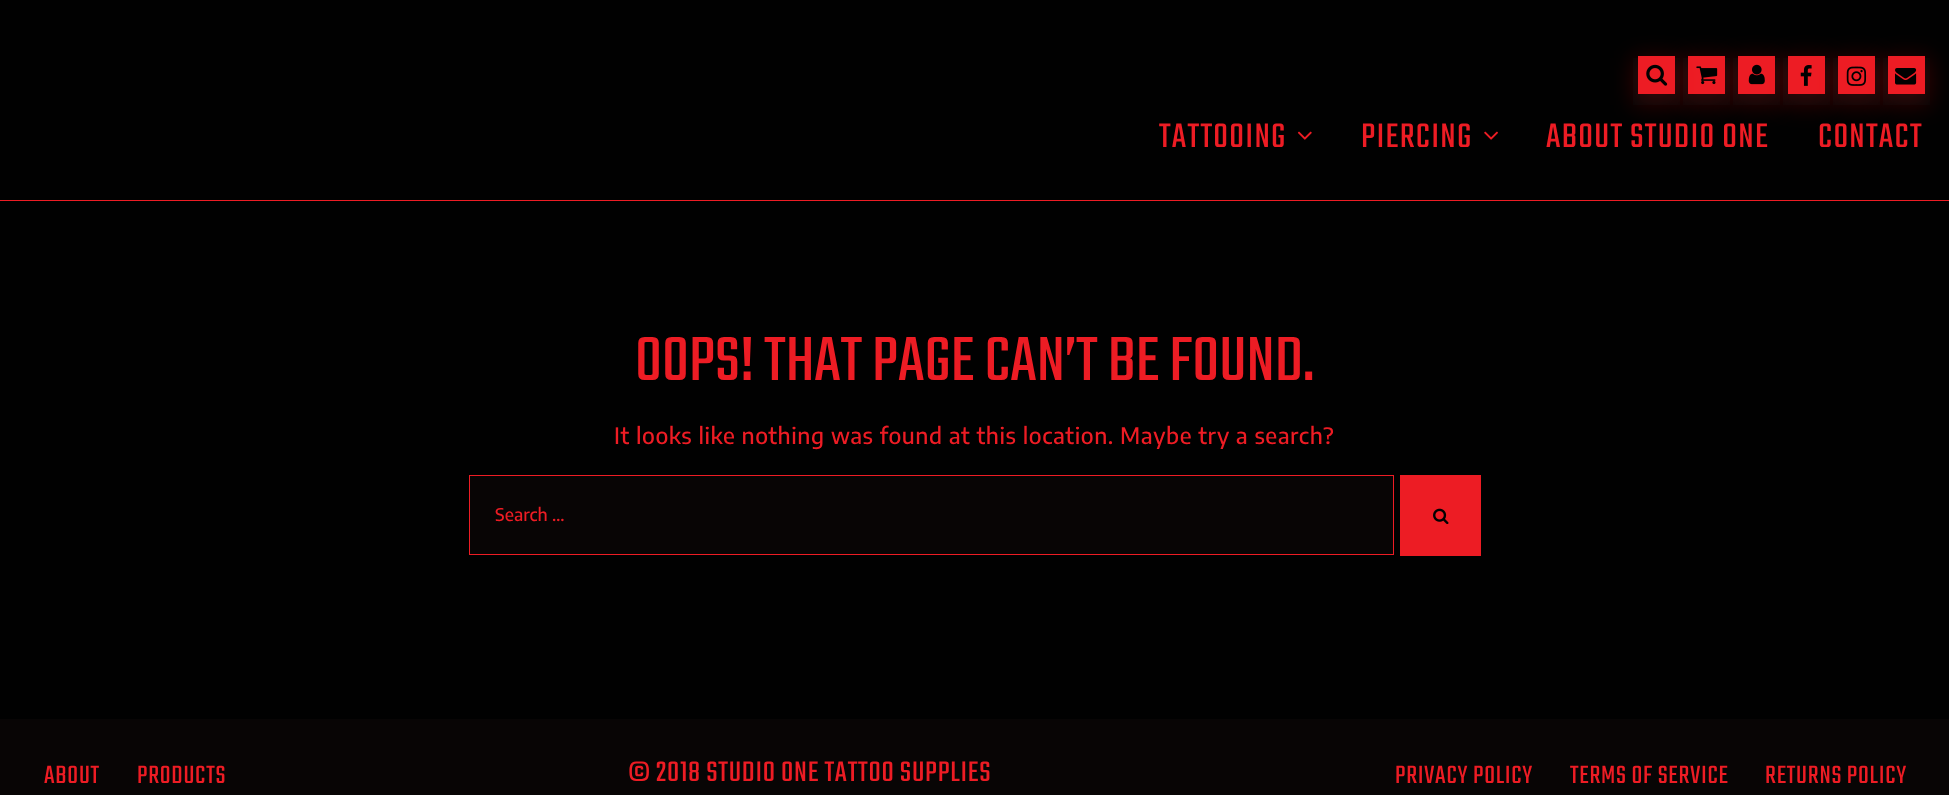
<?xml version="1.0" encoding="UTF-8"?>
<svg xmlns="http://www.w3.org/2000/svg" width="1949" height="795">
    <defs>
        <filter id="blur1" x="-50%" y="-200%" width="200%" height="500%"><feGaussianBlur stdDeviation="11"/></filter>
    </defs>
    <rect width="100%" height="100%" fill="#010101"/>
    <rect x="1683" y="58" width="47" height="47" fill="#ED1C24" fill-opacity="0.2" filter="url(#blur1)"/>
    <rect x="1688" y="56" width="37" height="38" fill="#ED1C24"/>
    <rect x="1633" y="58" width="47" height="47" fill="#ED1C24" fill-opacity="0.2" filter="url(#blur1)"/>
    <rect x="1638" y="56" width="37" height="38" fill="#ED1C24"/>
    <image x="1646" y="64" width="22" height="22" href="img_01.png"/>
    <rect x="1733" y="58" width="47" height="47" fill="#ED1C24" fill-opacity="0.2" filter="url(#blur1)"/>
    <image x="1696" y="66" width="22" height="19" href="img_02.png"/>
    <rect x="1738" y="56" width="37" height="38" fill="#ED1C24"/>
    <rect x="1783" y="58" width="47" height="47" fill="#ED1C24" fill-opacity="0.2" filter="url(#blur1)"/>
    <image x="1748" y="64" width="17" height="21" href="img_03.png"/>
    <rect x="1788" y="56" width="37" height="38" fill="#ED1C24"/>
    <rect x="1833" y="58" width="47" height="47" fill="#ED1C24" fill-opacity="0.2" filter="url(#blur1)"/>
    <image x="1800" y="65" width="12" height="21" href="img_04.png"/>
    <rect x="1838" y="56" width="37" height="38" fill="#ED1C24"/>
    <rect x="1883" y="58" width="47" height="47" fill="#ED1C24" fill-opacity="0.2" filter="url(#blur1)"/>
    <image x="1846" y="66" width="21" height="20" href="img_05.png"/>
    <rect x="1888" y="56" width="37" height="38" fill="#ED1C24"/>
    <image x="1895" y="68" width="22" height="17" href="img_06.png"/>
    <text x="1159" y="147" font-family="Teko" font-size="37.5" letter-spacing="1.25" fill="#ED1C24">TATTOOING</text>
    <image x="1297" y="131" width="15" height="9" href="img_07.png"/>
    <text x="1361" y="147" font-family="Teko" font-size="37.5" letter-spacing="1.25" fill="#ED1C24">PIERCING</text>
    <image x="1484" y="131" width="14" height="9" href="img_08.png"/>
    <text x="1546" y="147" font-family="Teko" font-size="37.5" letter-spacing="1.25" fill="#ED1C24">ABOUT STUDIO ONE</text>
    <text x="1818" y="147" font-family="Teko" font-size="37.5" letter-spacing="1.25" fill="#ED1C24">CONTACT</text>
    <rect x="0" y="200" width="1949" height="1" fill="#ED1C24"/>
    <text x="635" y="380" font-family="Teko" font-size="68.75" fill="#ED1C24">OOPS! THAT PAGE CAN’T BE FOUND.</text>
    <text x="614" y="444" font-family="Encode Sans Condensed" font-size="22.5" font-weight="500" letter-spacing="0.55" fill="#ED1C24">It looks like nothing was found at this location. Maybe try a search?</text>
    <rect x="469.5" y="475.5" width="924" height="79" fill="#080505" stroke="#ED1C24"/>
    <text x="495" y="521" font-family="Encode Sans Condensed" font-size="17.5" font-weight="500" fill="#ED1C24">Search …</text>
    <rect x="1400" y="475" width="81" height="81" fill="#ED1C24"/>
    <image x="1433" y="508" width="16" height="16" href="img_09.png"/>
    <rect x="0" y="719" width="1949" height="76" fill="#080505"/>
    <text x="44" y="783" font-family="Teko" font-size="27.5" letter-spacing="0.75" fill="#ED1C24">ABOUT</text>
    <text x="137" y="783" font-family="Teko" font-size="27.5" letter-spacing="0.75" fill="#ED1C24">PRODUCTS</text>
    <text x="628" y="781" font-family="Teko" font-size="31.25" letter-spacing="0.75" fill="#ED1C24">© 2018 STUDIO ONE TATTOO SUPPLIES</text>
    <text x="1395" y="783" font-family="Teko" font-size="27.5" letter-spacing="0.75" fill="#ED1C24">PRIVACY POLICY</text>
    <text x="1570" y="783" font-family="Teko" font-size="27.5" letter-spacing="0.75" fill="#ED1C24">TERMS OF SERVICE</text>
    <text x="1765" y="783" font-family="Teko" font-size="27.5" letter-spacing="0.75" fill="#ED1C24">RETURNS POLICY</text>
</svg>
